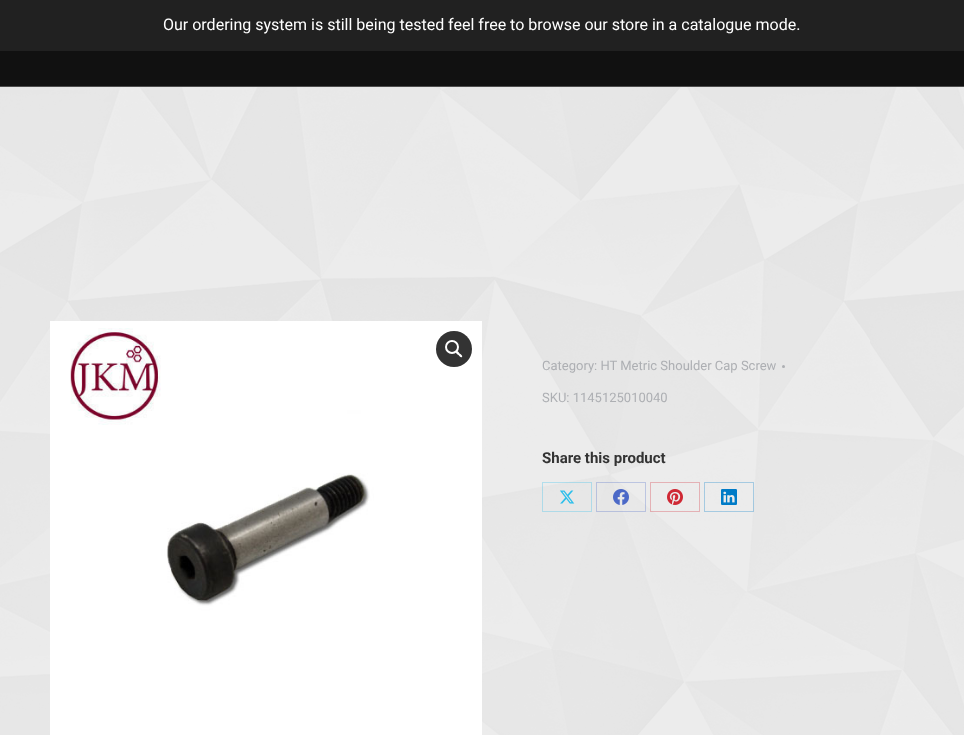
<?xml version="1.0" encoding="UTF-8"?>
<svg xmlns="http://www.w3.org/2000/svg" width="964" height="735">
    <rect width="100%" height="100%" fill="#EAEAEA"/>
    <rect x="0" y="0" width="964" height="51" fill="#212121"/>
    <text x="163" y="30" font-family="Roboto" font-size="16" fill="#FFFFFF">Our ordering system is still being tested feel free to browse our store in a catalogue mode.</text>
    <image x="0" y="87" width="964" height="648" href="img_01.png"/>
    <rect x="0" y="51" width="964" height="35" fill="#111111"/>
    <rect x="0" y="86" width="964" height="1" fill="#4D4D4D"/>
    <image x="50" y="321" width="432" height="414" href="img_02.png"/>
    <circle cx="454" cy="349" r="18" fill="#333333"/>
    <circle cx="452" cy="347" r="6" fill="none" stroke="#FFFFFF" stroke-width="2"/>
    <path d="M 456 351.5 C 457.5 350 459 353 459.5 353.5 C 460.5 354 463 356 462 357 C 460.5 358 459 355.5 458.5 355 C 457.5 354.5 455 352.5 456 351.5 Z" fill="#FFFFFF"/>
    <text x="542" y="370" font-family="Roboto" font-size="13" fill="#ADAFB3">Category: HT Metric Shoulder Cap Screw</text>
    <circle cx="783.5" cy="366.5" r="1.5" fill="#ADAFB3"/>
    <text x="542" y="402" font-family="Roboto" font-size="13" fill="#ADAFB3">SKU: 1145125010040</text>
    <text x="542" y="463" font-family="Roboto" font-size="15" font-weight="700" fill="#333333">Share this product</text>
    <rect x="542.5" y="482.5" width="49" height="29" fill="none" stroke="#2ABEEB" stroke-opacity="0.3"/>
    <image x="560" y="490" width="15" height="14" href="img_03.png"/>
    <rect x="596.5" y="482.5" width="49" height="29" fill="none" stroke="#4C69C7" stroke-opacity="0.3"/>
    <image x="613" y="489" width="16" height="16" href="img_04.png"/>
    <rect x="650.5" y="482.5" width="49" height="29" fill="none" stroke="#CF2834" stroke-opacity="0.3"/>
    <image x="667" y="489" width="16" height="16" href="img_05.png"/>
    <rect x="704.5" y="482.5" width="49" height="29" fill="none" stroke="#007BC7" stroke-opacity="0.3"/>
    <image x="721" y="489" width="16" height="16" href="img_06.png"/>
</svg>
